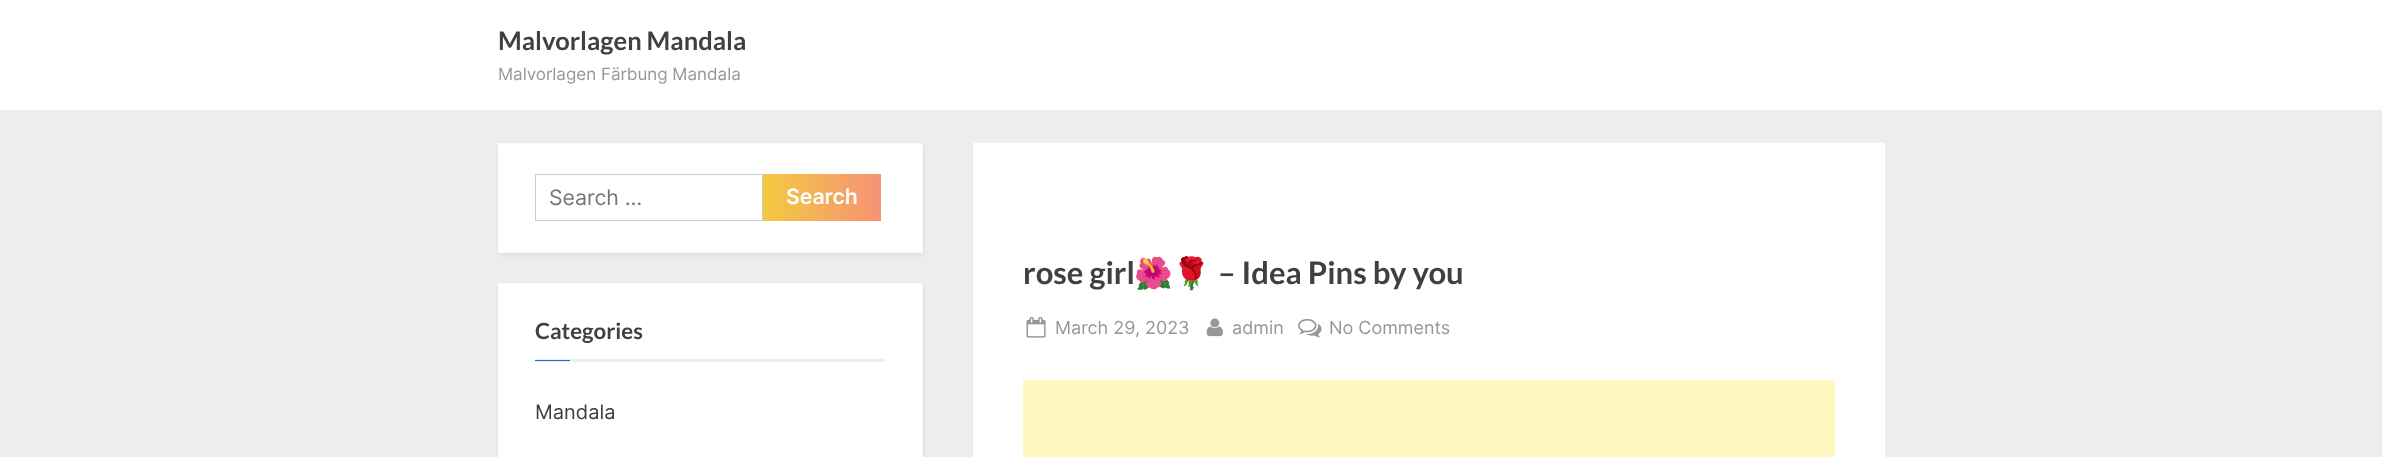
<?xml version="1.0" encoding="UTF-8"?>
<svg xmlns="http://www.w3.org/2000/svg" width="2382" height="457">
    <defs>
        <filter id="blur1" x="-50%" y="-200%" width="200%" height="500%"><feGaussianBlur stdDeviation="2"/></filter>
        <linearGradient id="g1" gradientUnits="userSpaceOnUse" x1="538" y1="198" x2="765" y2="198"><stop offset="0" stop-color="#F3C841"/><stop offset="0.51" stop-color="#F69275"/><stop offset="1" stop-color="#F3C841"/></linearGradient>
        <linearGradient id="g2" gradientUnits="userSpaceOnUse" x1="765" y1="198" x2="993" y2="198"><stop offset="0" stop-color="#F3C841"/><stop offset="0.51" stop-color="#F69275"/><stop offset="1" stop-color="#F3C841"/></linearGradient>
    </defs>
    <rect width="100%" height="100%" fill="#EDEDED"/>
    <rect x="0" y="0" width="2382" height="110" fill="#FFFFFF"/>
    <text x="498" y="50" font-family="Lato" font-size="25.5" font-weight="700" fill="#404040">Malvorlagen Mandala</text>
    <text x="498" y="80" font-family="Inter" font-size="17" fill="#979797">Malvorlagen Färbung Mandala</text>
    <rect x="499" y="145" width="425" height="110" fill="#000000" fill-opacity="0.07" filter="url(#blur1)"/>
    <rect x="498.5" y="143.5" width="424" height="109" fill="#FFFFFF" stroke="#FAFAFA"/>
    <rect x="535.5" y="174.5" width="227" height="46" fill="none" stroke="#CCCCCC"/>
    <text x="549" y="205" font-family="Inter" font-size="21.25" fill="#757575">Search …</text>
    <rect x="763" y="174" width="2" height="47" fill="url(#g1)"/>
    <rect x="765" y="174" width="116" height="47" fill="url(#g2)"/>
    <text x="786" y="204" font-family="Inter" font-size="21.25" font-weight="600" fill="#FFFFFF">Search</text>
    <rect x="499" y="285" width="425" height="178" fill="#000000" fill-opacity="0.07" filter="url(#blur1)"/>
    <rect x="498.5" y="283.5" width="424" height="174" fill="#FFFFFF" stroke="#FAFAFA"/>
    <rect x="535" y="359" width="350" height="3" fill="#EEEEEE"/>
    <text x="535" y="339" font-family="Lato" font-size="22.25" font-weight="700" fill="#404040">Categories</text>
    <rect x="535" y="360" width="35" height="1" fill="#166DD6"/>
    <text x="535" y="419" font-family="Inter" font-size="20" fill="#404040">Mandala</text>
    <rect x="973" y="143" width="912" height="314" fill="#FFFFFF"/>
    <text x="1023" y="284" font-family="Lato" font-size="31" font-weight="700" fill="#404040">rose girl</text>
    <text x="1134" y="284" font-family="Noto Color Emoji" font-size="31" font-weight="700" fill="#404040">🌺🌹</text>
    <text x="1218" y="284" font-family="Lato" font-size="31" font-weight="700" fill="#404040">– Idea Pins by you</text>
    <image x="1026" y="317" width="20" height="21" href="img_01.png"/>
    <text x="1055" y="334" font-family="Inter" font-size="18" fill="#979797">March 29, 2023</text>
    <image x="1206" y="318" width="17" height="19" href="img_02.png"/>
    <text x="1232" y="334" font-family="Inter" font-size="18" fill="#979797">admin</text>
    <image x="1298" y="318" width="24" height="20" href="img_03.png"/>
    <text x="1329" y="334" font-family="Inter" font-size="18" fill="#979797">No Comments</text>
    <rect x="1023" y="380" width="812" height="77" fill="#FFF9C0"/>
</svg>
